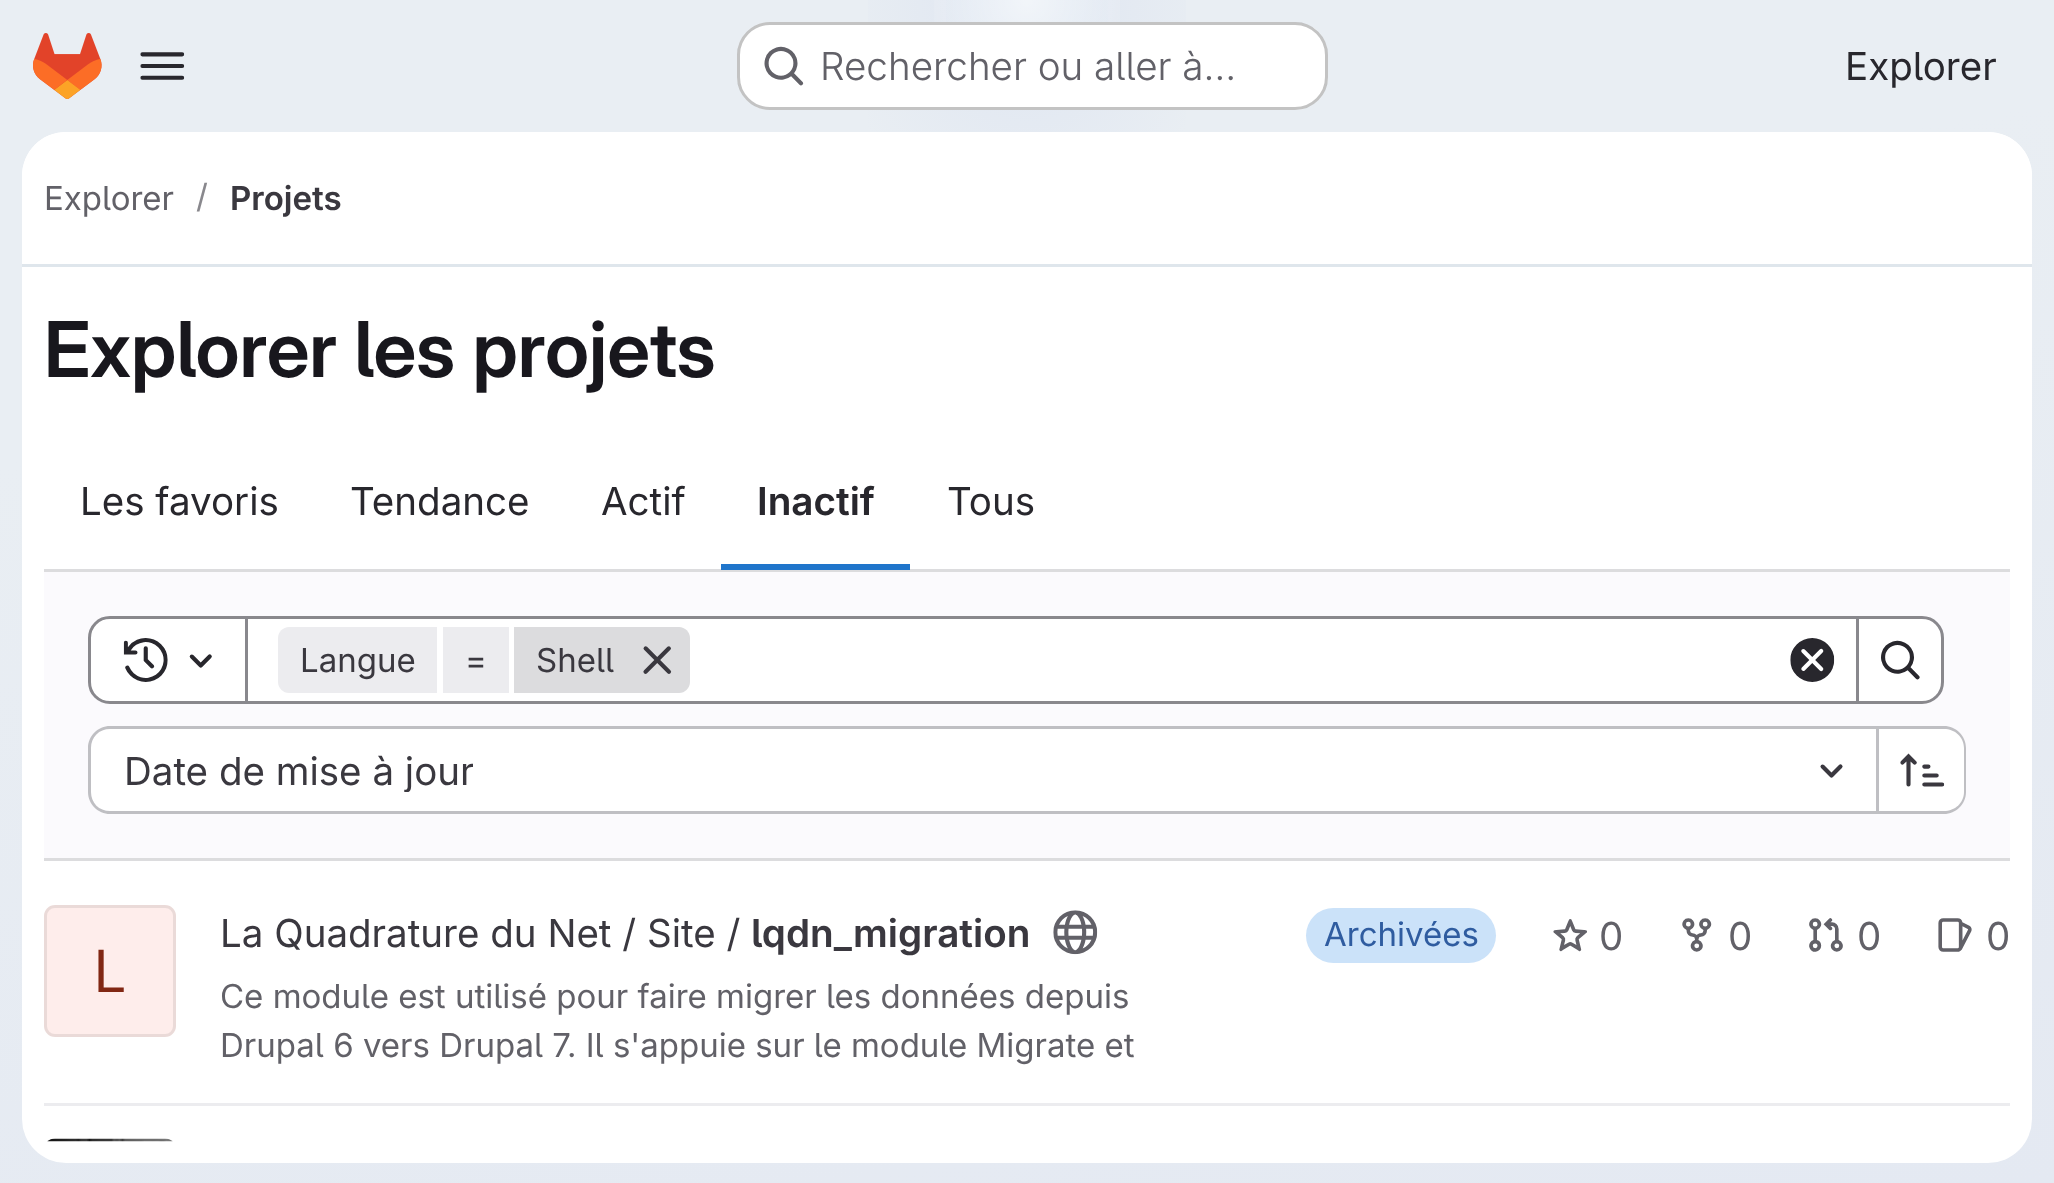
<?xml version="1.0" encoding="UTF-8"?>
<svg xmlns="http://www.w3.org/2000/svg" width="2054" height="1183">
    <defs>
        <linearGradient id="g1" gradientUnits="userSpaceOnUse" x1="1159" y1="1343" x2="895" y2="-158"><stop offset="0" stop-color="#E4E9F2"/><stop offset="0.7" stop-color="#E9EEF3"/></linearGradient>
        <radialGradient id="g2" gradientUnits="userSpaceOnUse" cx="0" cy="0" r="1" gradientTransform="matrix(1027 0 0 1185 1027 0)"><stop offset="0" stop-color="#DEE5F1"/><stop offset="0.19" stop-color="#DEE5F1" stop-opacity="0"/></radialGradient>
        <radialGradient id="g3" gradientUnits="userSpaceOnUse" cx="0" cy="0" r="1" gradientTransform="matrix(1027 0 0 1185 1027 0)"><stop offset="0" stop-color="#DEE7F1"/><stop offset="0.13" stop-color="#DEE7F1" stop-opacity="0"/></radialGradient>
        <radialGradient id="g4" gradientUnits="userSpaceOnUse" cx="1027" cy="0" r="1568"><stop offset="0" stop-color="#FFFFFF" stop-opacity="0.6"/><stop offset="0.07" stop-color="#FFFFFF" stop-opacity="0"/></radialGradient>
        <clipPath id="clip1"><rect x="124" y="748" width="349" height="44"/></clipPath>
        <clipPath id="clip2"><rect x="22" y="267" width="2010" height="874"/></clipPath>
    </defs>
    <rect width="100%" height="100%" fill="#FFFFFF"/>
    <rect x="0" y="0" width="2054" height="1183" fill="url(#g1)"/>
    <rect x="868" y="0" width="318" height="132" fill="url(#g2)"/>
    <rect x="946" y="0" width="162" height="97" fill="url(#g3)"/>
    <rect x="934" y="0" width="186" height="22" fill="url(#g4)"/>
    <image x="33" y="33" width="69" height="66" href="img_01.png"/>
    <image x="140" y="52" width="45" height="28" href="img_02.png"/>
    <rect x="737" y="22" width="591" height="88" rx="33" fill="#FFFFFF"/>
    <rect x="738.5" y="23.5" width="588" height="85" rx="31.5" fill="none" stroke="#050506" stroke-opacity="0.24" stroke-width="3"/>
    <image x="764" y="46" width="40" height="40" href="img_03.png"/>
    <text x="820" y="80" font-family="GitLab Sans" font-size="38.5" font-weight="300" fill="#626168">Rechercher ou aller à…</text>
    <text x="1845" y="80" font-family="GitLab Sans" font-size="38.5" fill="#28272D">Explorer</text>
    <rect x="22" y="132" width="2010" height="1031" rx="44" fill="#FFFFFF"/>
    <path d="M 66 132 H 1988 C 2012.5 132 2032 151.5 2032 176 V 267 H 22 V 176 C 22 151.5 41.5 132 66 132 Z" fill="#FFFFFF"/>
    <rect x="22" y="264" width="2010" height="3" fill="#DFE6EC"/>
    <text x="44" y="210" font-family="GitLab Sans" font-size="33" fill="#626168">Explorer</text>
    <text x="196" y="208" font-family="GitLab Sans" font-size="33" fill="#89888D">/</text>
    <text x="230" y="210" font-family="'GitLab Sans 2'" font-size="33" font-weight="600" fill="#3A383F">Projets</text>
    <text x="44" y="377" font-family="GitLab Sans" font-size="77" font-weight="600" fill="#18171D">Explorer les projets</text>
    <text x="80" y="515" font-family="GitLab Sans" font-size="38.5" fill="#28272D">Les favoris</text>
    <text x="350" y="515" font-family="GitLab Sans" font-size="38.5" fill="#28272D">Tendance</text>
    <text x="601" y="515" font-family="GitLab Sans" font-size="38.5" fill="#28272D">Actif</text>
    <text x="757" y="515" font-family="'GitLab Sans 2'" font-size="38.5" font-weight="600" fill="#28272D">Inactif</text>
    <rect x="44" y="569" width="1966" height="3" fill="#DCDCDE"/>
    <rect x="721" y="564" width="189" height="6" fill="#1F75CB"/>
    <text x="947" y="515" font-family="GitLab Sans" font-size="38.5" fill="#28272D">Tous</text>
    <rect x="44" y="572" width="1966" height="286" fill="#FBFAFD"/>
    <rect x="44" y="858" width="1966" height="3" fill="#DCDCDE"/>
    <rect x="246.5" y="617.5" width="1611" height="85" fill="#FFFFFF" stroke="#89888D" stroke-width="3"/>
    <path d="M 110 617.5 H 246.5 V 702.5 H 110 C 98.5 702.5 89.5 693.5 89.5 682 V 638 C 89.5 626.5 98.5 617.5 110 617.5 Z" fill="#FFFFFF" stroke="#89888D" stroke-width="3"/>
    <image x="123" y="638" width="45" height="44" href="img_04.png"/>
    <image x="189" y="654" width="23" height="14" href="img_05.png"/>
    <path d="M 289 627 H 437 V 693 H 289 C 283 693 278 688 278 682 V 638 C 278 632 283 627 289 627 Z" fill="#ECECEF"/>
    <text x="300" y="672" font-family="GitLab Sans" font-size="33" fill="#3A383F">Langue</text>
    <rect x="443" y="627" width="66" height="66" fill="#ECECEF"/>
    <text x="465" y="672" font-family="GitLab Sans" font-size="33" fill="#3A383F">=</text>
    <path d="M 514 627 H 679 C 685 627 690 632 690 638 V 682 C 690 688 685 693 679 693 H 514 Z" fill="#DCDCDE"/>
    <text x="536" y="672" font-family="GitLab Sans" font-size="33" fill="#3A383F">Shell</text>
    <image x="643" y="646" width="29" height="28" href="img_06.png"/>
    <image x="1790" y="638" width="45" height="44" href="img_07.png"/>
    <path d="M 1857.5 617.5 H 1922 C 1933.5 617.5 1942.5 626.5 1942.5 638 V 682 C 1942.5 693.5 1933.5 702.5 1922 702.5 H 1857.5 Z" fill="#FFFFFF" stroke="#89888D" stroke-width="3"/>
    <image x="1881" y="640" width="39" height="40" href="img_08.png"/>
    <path d="M 110 729 H 1876 V 811 H 110 C 99.5 811 91 802.5 91 792 V 748 C 91 737.5 99.5 729 110 729 Z" fill="#FFFFFF"/>
    <path d="M 110 726 H 1876 V 814 H 110 C 98 814 88 804 88 792 V 748 C 88 736 98 726 110 726 Z M 110 729 H 1876 V 811 H 110 C 99 811 91 803 91 792 V 748 C 91 737 99 729 110 729 Z" fill="#BFBFC3" fill-rule="evenodd"/>
    <g clip-path="url(#clip1)">
        <text x="124" y="785" font-family="GitLab Sans" font-size="38.5" fill="#3A383F">Date de mise à jour</text>
    </g>
    <image x="1820" y="764" width="23" height="14" href="img_09.png"/>
    <path d="M 1878 729 H 1945 C 1955.5 729 1964 737.5 1964 748 V 792 C 1964 802.5 1955.5 811 1945 811 H 1878 Z" fill="#FFFFFF"/>
    <path d="M 1878 726 H 1944 C 1956 726 1966 736 1966 748 V 792 C 1966 804 1956 814 1944 814 H 1878 Z M 1878 729 H 1944 C 1955 729 1964 737 1964 748 V 792 C 1964 803 1955 811 1944 811 H 1878 Z" fill="#BFBFC3" fill-rule="evenodd"/>
    <rect x="1876" y="726" width="3" height="88" fill="#BFBFC3"/>
    <image x="1900" y="753" width="45" height="34" href="img_10.png"/>
    <rect x="44" y="1103" width="1966" height="3" fill="#ECECEF"/>
    <text x="220" y="947" font-family="GitLab Sans" font-size="38.5" fill="#3A383F">La Quadrature du Net / Site /</text>
    <text x="751" y="947" font-family="'GitLab Sans 2'" font-size="38.5" font-weight="600" fill="#3A383F">lqdn_migration</text>
    <image x="1053" y="910" width="45" height="45" href="img_11.png"/>
    <text font-family="GitLab Sans" font-size="33" fill="#626168">
        <tspan x="220" y="1008">Ce module est utilisé pour faire migrer les données depuis</tspan>
        <tspan x="220" y="1057">Drupal 6 vers Drupal 7. Il s'appuie sur le module Migrate et</tspan>
    </text>
    <rect x="1306" y="908" width="190" height="55" rx="27.5" fill="#CBE2F9"/>
    <text x="1324" y="946" font-family="GitLab Sans" font-size="33" fill="#2F5CA0">Archivées</text>
    <image x="1553" y="919" width="34" height="33" href="img_12.png"/>
    <text x="1599" y="950" font-family="GitLab Sans" font-size="38.5" fill="#626168">0</text>
    <image x="1682" y="918" width="30" height="34" href="img_13.png"/>
    <text x="1728" y="950" font-family="GitLab Sans" font-size="38.5" fill="#626168">0</text>
    <image x="1809" y="918" width="34" height="34" href="img_14.png"/>
    <text x="1857" y="950" font-family="GitLab Sans" font-size="38.5" fill="#626168">0</text>
    <image x="1938" y="918" width="34" height="34" href="img_15.png"/>
    <text x="1986" y="950" font-family="GitLab Sans" font-size="38.5" fill="#626168">0</text>
    <rect x="44" y="905" width="132" height="132" rx="11" fill="#FEEDEB"/>
    <rect x="45.5" y="906.5" width="129" height="129" rx="9.5" fill="none" stroke="#050506" stroke-opacity="0.08" stroke-width="3"/>
    <text x="94" y="992" font-family="'GitLab Sans 2'" font-size="58" fill="#812713">L</text>
    <image x="47" y="1138" width="126" height="4" href="img_16.png"/>
    <g clip-path="url(#clip2)">
        <path d="M 55 1139 C 44 1139 44 1149 44 1157 L 47 1159 V 1150 C 47 1146 51 1142 55 1142 H 165 C 169 1142 173 1146 173 1150 V 1163 H 176 C 176 1154 178 1139 165 1139 Z" fill="#050506" fill-opacity="0.08"/>
    </g>
</svg>
